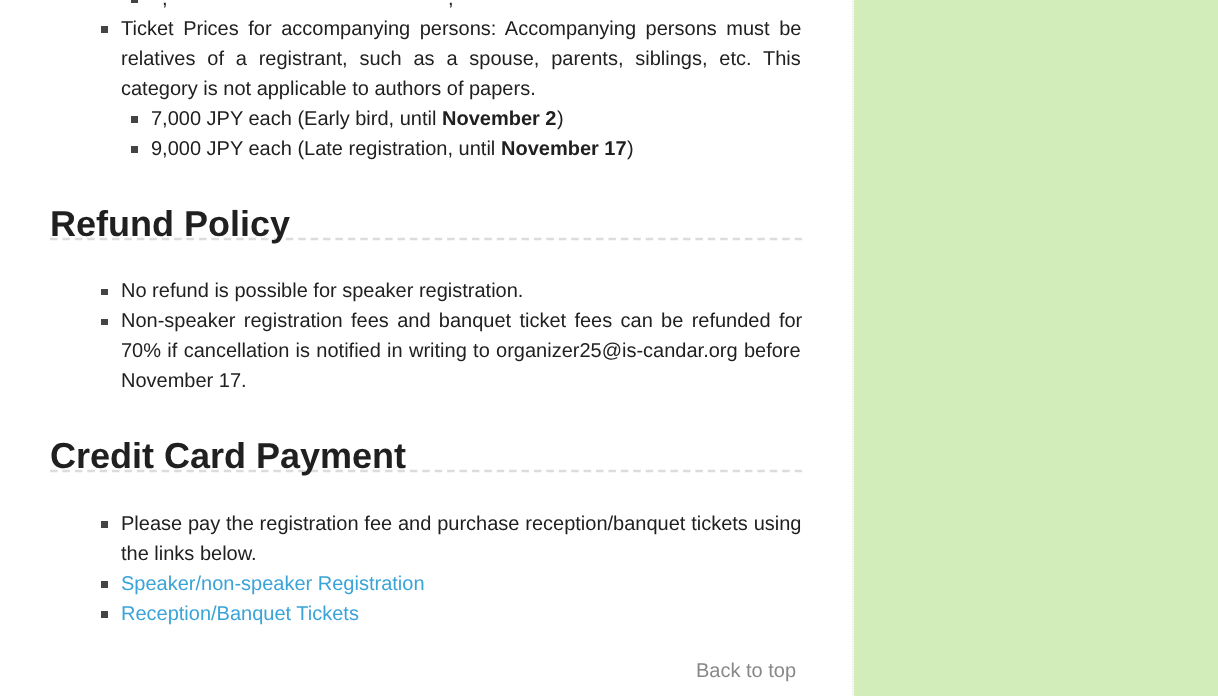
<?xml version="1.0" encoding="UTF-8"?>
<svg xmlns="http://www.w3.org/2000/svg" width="1218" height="696">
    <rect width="100%" height="100%" fill="#D2EDB9"/>
    <rect x="0" y="0" width="854" height="696" fill="#FFFFFF"/>
    <path d="M 853 -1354 V 696" fill="none" stroke="#DDDDDD" stroke-width="1.2" stroke-dasharray="1.25 1.25"/>
    <rect x="131" y="0" width="7" height="3" fill="#444444"/>
    <text x="162" y="5" font-family="Liberation Sans" font-size="20" fill="#202020">,</text>
    <text x="448" y="5" font-family="Liberation Sans" font-size="20" fill="#202020">,</text>
    <rect x="101" y="26" width="7" height="7" fill="#444444"/>
    <text font-family="Liberation Sans" font-size="20" fill="#202020">
        <tspan x="121" y="35" word-spacing="4">Ticket Prices for accompanying persons: Accompanying persons must be</tspan>
        <tspan x="121" y="65" word-spacing="6.25">relatives of a registrant, such as a spouse, parents, siblings, etc. This</tspan>
        <tspan x="121" y="95">category is not applicable to authors of papers.</tspan>
    </text>
    <rect x="131" y="116" width="7" height="7" fill="#444444"/>
    <text x="151" y="125" font-family="Liberation Sans" font-size="20" fill="#202020">7,000 JPY each (Early bird, until</text>
    <text x="442" y="125" font-family="Liberation Sans" font-size="20" font-weight="700" fill="#202020">November 2</text>
    <text x="557" y="125" font-family="Liberation Sans" font-size="20" fill="#202020">)</text>
    <rect x="131" y="146" width="7" height="7" fill="#444444"/>
    <text x="151" y="155" font-family="Liberation Sans" font-size="20" fill="#202020">9,000 JPY each (Late registration, until</text>
    <text x="501" y="155" font-family="Liberation Sans" font-size="20" font-weight="700" fill="#202020">November 17</text>
    <text x="627" y="155" font-family="Liberation Sans" font-size="20" fill="#202020">)</text>
    <path d="M 50 239 H 802.5" fill="none" stroke="#DCDCDC" stroke-width="2.5" stroke-dasharray="7.5 4.91"/>
    <text x="50" y="236" font-family="Liberation Sans" font-size="36" font-weight="700" fill="#202020">Refund Policy</text>
    <rect x="101" y="289" width="7" height="6" fill="#444444"/>
    <text x="121" y="297" font-family="Liberation Sans" font-size="20" fill="#202020">No refund is possible for speaker registration.</text>
    <rect x="101" y="319" width="7" height="6" fill="#444444"/>
    <text font-family="Liberation Sans" font-size="20" fill="#202020">
        <tspan x="121" y="327" word-spacing="2.75">Non-speaker registration fees and banquet ticket fees can be refunded for</tspan>
        <tspan x="121" y="357" word-spacing="0.75">70% if cancellation is notified in writing to organizer25@is-candar.org before</tspan>
        <tspan x="121" y="387">November 17.</tspan>
    </text>
    <path d="M 50 471 H 802.5" fill="none" stroke="#DCDCDC" stroke-width="2.5" stroke-dasharray="7.5 4.91"/>
    <text x="50" y="468" font-family="Liberation Sans" font-size="36" font-weight="700" fill="#202020">Credit Card Payment</text>
    <rect x="101" y="521" width="7" height="7" fill="#444444"/>
    <text font-family="Liberation Sans" font-size="20" fill="#202020">
        <tspan x="121" y="530" word-spacing="0.25">Please pay the registration fee and purchase reception/banquet tickets using</tspan>
        <tspan x="121" y="560">the links below.</tspan>
    </text>
    <rect x="101" y="581" width="7" height="7" fill="#444444"/>
    <text x="121" y="590" font-family="Liberation Sans" font-size="20" fill="#3AA3D8">Speaker/non-speaker Registration</text>
    <rect x="101" y="611" width="7" height="7" fill="#444444"/>
    <text x="121" y="620" font-family="Liberation Sans" font-size="20" fill="#3AA3D8">Reception/Banquet Tickets</text>
    <text x="696" y="677" font-family="Liberation Sans" font-size="20" fill="#888888">Back to top</text>
</svg>
